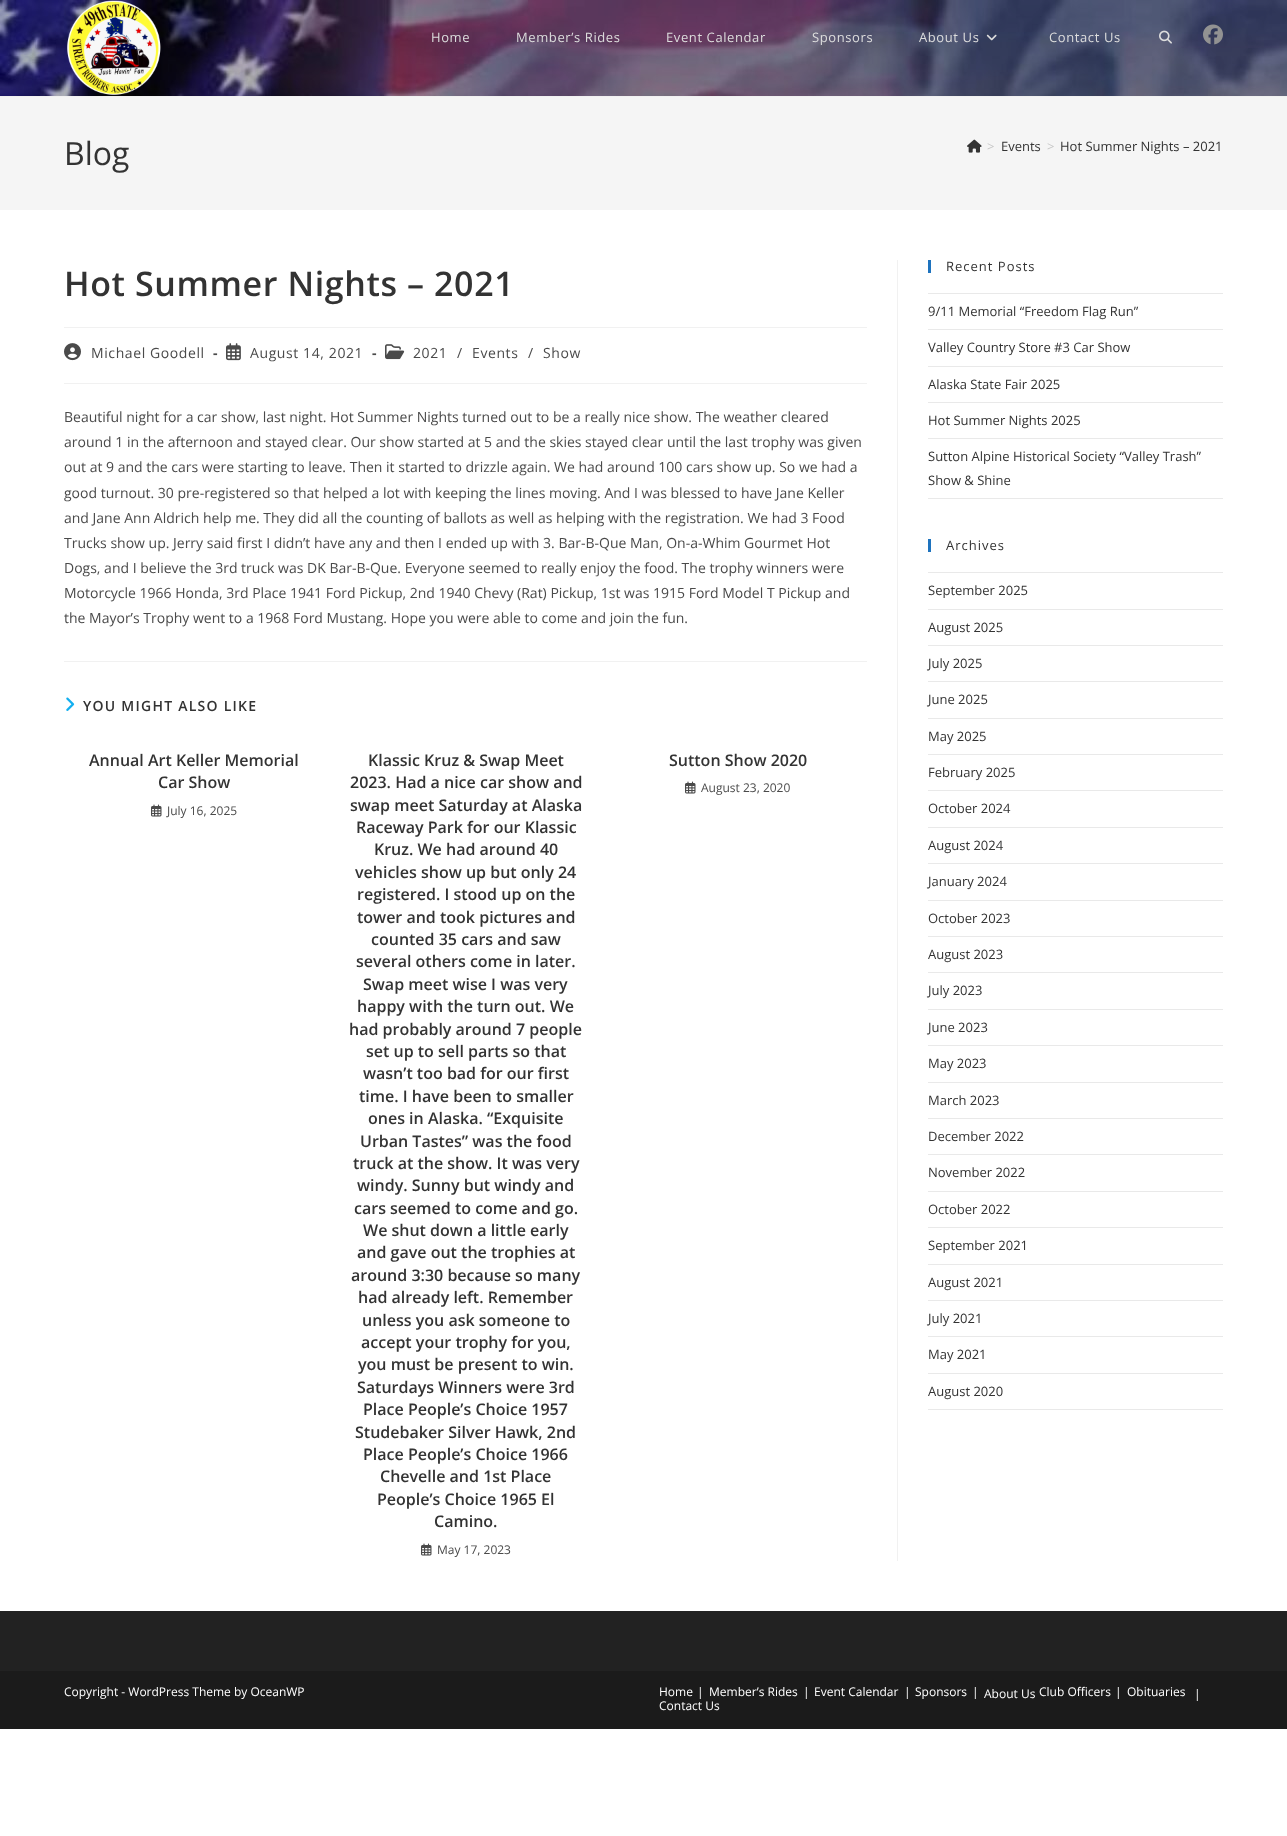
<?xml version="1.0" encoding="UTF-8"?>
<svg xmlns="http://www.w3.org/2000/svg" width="1287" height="1836">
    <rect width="100%" height="100%" fill="#FFFFFF"/>
    <image x="0" y="0" width="1287" height="96" href="img_01.png"/>
    <rect x="0" y="96" width="1287" height="1" fill="#F1F1F1"/>
    <image x="67" y="0" width="94" height="95" href="img_02.png"/>
    <text x="431" y="42" font-family="Open Sans" font-size="13" letter-spacing="0.6" fill="#DDDDDD">Home</text>
    <text x="516" y="42" font-family="Open Sans" font-size="13" letter-spacing="0.6" fill="#DDDDDD">Member’s Rides</text>
    <text x="666" y="42" font-family="Open Sans" font-size="13" letter-spacing="0.6" fill="#DDDDDD">Event Calendar</text>
    <text x="812" y="42" font-family="Open Sans" font-size="13" letter-spacing="0.6" fill="#DDDDDD">Sponsors</text>
    <text x="919" y="42" font-family="Open Sans" font-size="13" letter-spacing="0.6" fill="#DDDDDD">About Us</text>
    <image x="986" y="34" width="11" height="7" href="img_03.png"/>
    <text x="1049" y="42" font-family="Open Sans" font-size="13" letter-spacing="0.6" fill="#DDDDDD">Contact Us</text>
    <image x="1159" y="30" width="13" height="14" href="img_04.png"/>
    <image x="1203" y="24" width="20" height="21" href="img_05.png"/>
    <rect x="0" y="97" width="1287" height="113" fill="#F5F5F5"/>
    <text x="64" y="165" font-family="Open Sans" font-size="32" fill="#333333">Blog</text>
    <image x="967" y="139" width="15" height="14" href="img_06.png"/>
    <text x="987" y="151" font-family="Open Sans" font-size="13" fill="#C6C6C6">&gt;</text>
    <text x="1001" y="151" font-family="Open Sans" font-size="13" fill="#333333">Events</text>
    <text x="1047" y="151" font-family="Open Sans" font-size="13" fill="#C6C6C6">&gt;</text>
    <text x="1060" y="151" font-family="Open Sans" font-size="13" fill="#333333">Hot Summer Nights – 2021</text>
    <rect x="897" y="260" width="1" height="1301" fill="#F1F1F1"/>
    <rect x="64" y="327" width="803" height="1" fill="#F1F1F1"/>
    <text x="64" y="296" font-family="Open Sans" font-size="34" font-weight="600" letter-spacing="0.6" fill="#333333">Hot Summer Nights – 2021</text>
    <rect x="64" y="383" width="803" height="1" fill="#F1F1F1"/>
    <image x="64" y="343" width="17" height="18" href="img_07.png"/>
    <text x="91" y="358" font-family="Open Sans" font-size="14" letter-spacing="0.6" fill="#4A4A4A">Michael Goodell</text>
    <text x="213" y="358" font-family="Open Sans" font-size="14" font-weight="700" letter-spacing="0.6" fill="#4A4A4A">-</text>
    <image x="226" y="343" width="15" height="18" href="img_08.png"/>
    <text x="250" y="358" font-family="Open Sans" font-size="14" letter-spacing="0.6" fill="#4A4A4A">August 14, 2021</text>
    <text x="372" y="358" font-family="Open Sans" font-size="14" font-weight="700" letter-spacing="0.6" fill="#4A4A4A">-</text>
    <image x="385" y="344" width="20" height="16" href="img_09.png"/>
    <text x="413" y="358" font-family="Open Sans" font-size="14" letter-spacing="0.6" fill="#4A4A4A">2021</text>
    <text x="457" y="358" font-family="Open Sans" font-size="14" letter-spacing="0.6" fill="#4A4A4A">/</text>
    <text x="472" y="358" font-family="Open Sans" font-size="14" letter-spacing="0.6" fill="#4A4A4A">Events</text>
    <text x="528" y="358" font-family="Open Sans" font-size="14" letter-spacing="0.6" fill="#4A4A4A">/</text>
    <text x="543" y="358" font-family="Open Sans" font-size="14" letter-spacing="0.6" fill="#4A4A4A">Show</text>
    <text font-family="Open Sans" font-size="14" fill="#4A4A4A">
        <tspan x="64" y="422">Beautiful night for a car show, last night. Hot Summer Nights turned out to be a really nice show. The weather cleared</tspan>
        <tspan x="64" y="447">around 1 in the afternoon and stayed clear. Our show started at 5 and the skies stayed clear until the last trophy was given</tspan>
        <tspan x="64" y="472">out at 9 and the cars were starting to leave. Then it started to drizzle again. We had around 100 cars show up. So we had a</tspan>
        <tspan x="64" y="498">good turnout. 30 pre-registered so that helped a lot with keeping the lines moving. And I was blessed to have Jane Keller</tspan>
        <tspan x="64" y="523">and Jane Ann Aldrich help me. They did all the counting of ballots as well as helping with the registration. We had 3 Food</tspan>
        <tspan x="64" y="548">Trucks show up. Jerry said first I didn’t have any and then I ended up with 3. Bar-B-Que Man, On-a-Whim Gourmet Hot</tspan>
        <tspan x="64" y="573">Dogs, and I believe the 3rd truck was DK Bar-B-Que. Everyone seemed to really enjoy the food. The trophy winners were</tspan>
        <tspan x="64" y="598">Motorcycle 1966 Honda, 3rd Place 1941 Ford Pickup, 2nd 1940 Chevy (Rat) Pickup, 1st was 1915 Ford Model T Pickup and</tspan>
        <tspan x="64" y="623">the Mayor’s Trophy went to a 1968 Ford Mustang. Hope you were able to come and join the fun.</tspan>
    </text>
    <rect x="64" y="661" width="803" height="1" fill="#F1F1F1"/>
    <image x="66" y="697" width="9" height="14" href="img_10.png"/>
    <text x="83" y="711" font-family="Open Sans" font-size="14" font-weight="600" letter-spacing="1.25" fill="#333333">YOU MIGHT ALSO LIKE</text>
    <text x="89" y="766" font-family="Open Sans" font-size="16" font-weight="600" fill="#333333">Annual Art Keller Memorial</text>
    <text x="158" y="788" font-family="Open Sans" font-size="16" font-weight="600" fill="#333333">Car Show</text>
    <image x="151" y="804" width="11" height="13" href="img_11.png"/>
    <text x="167" y="815" font-family="Open Sans" font-size="12" fill="#4A4A4A">July 16, 2025</text>
    <text x="368" y="766" font-family="Open Sans" font-size="16" font-weight="600" fill="#333333">Klassic Kruz &amp; Swap Meet</text>
    <text font-family="Open Sans" font-size="16" font-weight="600" fill="#333333">
        <tspan x="350" y="788">2023. Had a nice car show and</tspan>
        <tspan x="350" y="811">swap meet Saturday at Alaska</tspan>
    </text>
    <text x="356" y="833" font-family="Open Sans" font-size="16" font-weight="600" fill="#333333">Raceway Park for our Klassic</text>
    <text x="374" y="855" font-family="Open Sans" font-size="16" font-weight="600" fill="#333333">Kruz. We had around 40</text>
    <text x="355" y="878" font-family="Open Sans" font-size="16" font-weight="600" fill="#333333">vehicles show up but only 24</text>
    <text font-family="Open Sans" font-size="16" font-weight="600" fill="#333333">
        <tspan x="357" y="900">registered. I stood up on the</tspan>
        <tspan x="357" y="923">tower and took pictures and</tspan>
    </text>
    <text x="371" y="945" font-family="Open Sans" font-size="16" font-weight="600" fill="#333333">counted 35 cars and saw</text>
    <text x="356" y="967" font-family="Open Sans" font-size="16" font-weight="600" fill="#333333">several others come in later.</text>
    <text x="363" y="990" font-family="Open Sans" font-size="16" font-weight="600" fill="#333333">Swap meet wise I was very</text>
    <text x="357" y="1012" font-family="Open Sans" font-size="16" font-weight="600" fill="#333333">happy with the turn out. We</text>
    <text x="349" y="1035" font-family="Open Sans" font-size="16" font-weight="600" fill="#333333">had probably around 7 people</text>
    <text x="366" y="1057" font-family="Open Sans" font-size="16" font-weight="600" fill="#333333">set up to sell parts so that</text>
    <text x="363" y="1079" font-family="Open Sans" font-size="16" font-weight="600" fill="#333333">wasn’t too bad for our first</text>
    <text x="359" y="1102" font-family="Open Sans" font-size="16" font-weight="600" fill="#333333">time. I have been to smaller</text>
    <text x="368" y="1124" font-family="Open Sans" font-size="16" font-weight="600" fill="#333333">ones in Alaska. “Exquisite</text>
    <text x="360" y="1147" font-family="Open Sans" font-size="16" font-weight="600" fill="#333333">Urban Tastes” was the food</text>
    <text x="353" y="1169" font-family="Open Sans" font-size="16" font-weight="600" fill="#333333">truck at the show. It was very</text>
    <text x="357" y="1191" font-family="Open Sans" font-size="16" font-weight="600" fill="#333333">windy. Sunny but windy and</text>
    <text x="354" y="1214" font-family="Open Sans" font-size="16" font-weight="600" fill="#333333">cars seemed to come and go.</text>
    <text x="363" y="1236" font-family="Open Sans" font-size="16" font-weight="600" fill="#333333">We shut down a little early</text>
    <text x="357" y="1258" font-family="Open Sans" font-size="16" font-weight="600" fill="#333333">and gave out the trophies at</text>
    <text x="351" y="1281" font-family="Open Sans" font-size="16" font-weight="600" fill="#333333">around 3:30 because so many</text>
    <text x="358" y="1303" font-family="Open Sans" font-size="16" font-weight="600" fill="#333333">had already left. Remember</text>
    <text x="362" y="1326" font-family="Open Sans" font-size="16" font-weight="600" fill="#333333">unless you ask someone to</text>
    <text x="361" y="1348" font-family="Open Sans" font-size="16" font-weight="600" fill="#333333">accept your trophy for you,</text>
    <text x="358" y="1370" font-family="Open Sans" font-size="16" font-weight="600" fill="#333333">you must be present to win.</text>
    <text x="357" y="1393" font-family="Open Sans" font-size="16" font-weight="600" fill="#333333">Saturdays Winners were 3rd</text>
    <text x="363" y="1415" font-family="Open Sans" font-size="16" font-weight="600" fill="#333333">Place People’s Choice 1957</text>
    <text x="355" y="1438" font-family="Open Sans" font-size="16" font-weight="600" fill="#333333">Studebaker Silver Hawk, 2nd</text>
    <text x="363" y="1460" font-family="Open Sans" font-size="16" font-weight="600" fill="#333333">Place People’s Choice 1966</text>
    <text x="380" y="1482" font-family="Open Sans" font-size="16" font-weight="600" fill="#333333">Chevelle and 1st Place</text>
    <text x="377" y="1505" font-family="Open Sans" font-size="16" font-weight="600" fill="#333333">People’s Choice 1965 El</text>
    <text x="434" y="1527" font-family="Open Sans" font-size="16" font-weight="600" fill="#333333">Camino.</text>
    <image x="421" y="1543" width="11" height="13" href="img_11.png"/>
    <text x="437" y="1554" font-family="Open Sans" font-size="12" fill="#4A4A4A">May 17, 2023</text>
    <text x="669" y="766" font-family="Open Sans" font-size="16" font-weight="600" fill="#333333">Sutton Show 2020</text>
    <image x="685" y="781" width="11" height="13" href="img_11.png"/>
    <text x="701" y="792" font-family="Open Sans" font-size="12" fill="#4A4A4A">August 23, 2020</text>
    <rect x="928" y="260" width="3" height="13" fill="#1E73BE"/>
    <text x="946" y="271" font-family="Open Sans" font-size="13" letter-spacing="1" fill="#333333">Recent Posts</text>
    <rect x="928" y="293" width="295" height="1" fill="#E9E9E9"/>
    <rect x="928" y="329" width="295" height="1" fill="#E9E9E9"/>
    <text x="928" y="316" font-family="Open Sans" font-size="13" fill="#333333">9/11 Memorial “Freedom Flag Run”</text>
    <rect x="928" y="366" width="295" height="1" fill="#E9E9E9"/>
    <text x="928" y="352" font-family="Open Sans" font-size="13" fill="#333333">Valley Country Store #3 Car Show</text>
    <rect x="928" y="402" width="295" height="1" fill="#E9E9E9"/>
    <text x="928" y="389" font-family="Open Sans" font-size="13" fill="#333333">Alaska State Fair 2025</text>
    <rect x="928" y="438" width="295" height="1" fill="#E9E9E9"/>
    <text x="928" y="425" font-family="Open Sans" font-size="13" fill="#333333">Hot Summer Nights 2025</text>
    <rect x="928" y="498" width="295" height="1" fill="#E9E9E9"/>
    <text font-family="Open Sans" font-size="13" fill="#333333">
        <tspan x="928" y="461">Sutton Alpine Historical Society “Valley Trash”</tspan>
        <tspan x="928" y="485">Show &amp; Shine</tspan>
    </text>
    <rect x="928" y="539" width="3" height="13" fill="#1E73BE"/>
    <text x="946" y="550" font-family="Open Sans" font-size="13" letter-spacing="1" fill="#333333">Archives</text>
    <rect x="928" y="572" width="295" height="1" fill="#E9E9E9"/>
    <rect x="928" y="609" width="295" height="1" fill="#E9E9E9"/>
    <text x="928" y="595" font-family="Open Sans" font-size="13" fill="#333333">September 2025</text>
    <rect x="928" y="645" width="295" height="1" fill="#E9E9E9"/>
    <text x="928" y="632" font-family="Open Sans" font-size="13" fill="#333333">August 2025</text>
    <rect x="928" y="681" width="295" height="1" fill="#E9E9E9"/>
    <text x="928" y="668" font-family="Open Sans" font-size="13" fill="#333333">July 2025</text>
    <rect x="928" y="718" width="295" height="1" fill="#E9E9E9"/>
    <text x="928" y="704" font-family="Open Sans" font-size="13" fill="#333333">June 2025</text>
    <rect x="928" y="754" width="295" height="1" fill="#E9E9E9"/>
    <text x="928" y="741" font-family="Open Sans" font-size="13" fill="#333333">May 2025</text>
    <rect x="928" y="790" width="295" height="1" fill="#E9E9E9"/>
    <text x="928" y="777" font-family="Open Sans" font-size="13" fill="#333333">February 2025</text>
    <rect x="928" y="827" width="295" height="1" fill="#E9E9E9"/>
    <text x="928" y="813" font-family="Open Sans" font-size="13" fill="#333333">October 2024</text>
    <rect x="928" y="863" width="295" height="1" fill="#E9E9E9"/>
    <text x="928" y="850" font-family="Open Sans" font-size="13" fill="#333333">August 2024</text>
    <rect x="928" y="900" width="295" height="1" fill="#E9E9E9"/>
    <text x="928" y="886" font-family="Open Sans" font-size="13" fill="#333333">January 2024</text>
    <rect x="928" y="936" width="295" height="1" fill="#E9E9E9"/>
    <text x="928" y="923" font-family="Open Sans" font-size="13" fill="#333333">October 2023</text>
    <rect x="928" y="972" width="295" height="1" fill="#E9E9E9"/>
    <text x="928" y="959" font-family="Open Sans" font-size="13" fill="#333333">August 2023</text>
    <rect x="928" y="1009" width="295" height="1" fill="#E9E9E9"/>
    <text x="928" y="995" font-family="Open Sans" font-size="13" fill="#333333">July 2023</text>
    <rect x="928" y="1045" width="295" height="1" fill="#E9E9E9"/>
    <text x="928" y="1032" font-family="Open Sans" font-size="13" fill="#333333">June 2023</text>
    <rect x="928" y="1082" width="295" height="1" fill="#E9E9E9"/>
    <text x="928" y="1068" font-family="Open Sans" font-size="13" fill="#333333">May 2023</text>
    <rect x="928" y="1118" width="295" height="1" fill="#E9E9E9"/>
    <text x="928" y="1105" font-family="Open Sans" font-size="13" fill="#333333">March 2023</text>
    <rect x="928" y="1154" width="295" height="1" fill="#E9E9E9"/>
    <text x="928" y="1141" font-family="Open Sans" font-size="13" fill="#333333">December 2022</text>
    <rect x="928" y="1191" width="295" height="1" fill="#E9E9E9"/>
    <text x="928" y="1177" font-family="Open Sans" font-size="13" fill="#333333">November 2022</text>
    <rect x="928" y="1227" width="295" height="1" fill="#E9E9E9"/>
    <text x="928" y="1214" font-family="Open Sans" font-size="13" fill="#333333">October 2022</text>
    <rect x="928" y="1264" width="295" height="1" fill="#E9E9E9"/>
    <text x="928" y="1250" font-family="Open Sans" font-size="13" fill="#333333">September 2021</text>
    <rect x="928" y="1300" width="295" height="1" fill="#E9E9E9"/>
    <text x="928" y="1287" font-family="Open Sans" font-size="13" fill="#333333">August 2021</text>
    <rect x="928" y="1336" width="295" height="1" fill="#E9E9E9"/>
    <text x="928" y="1323" font-family="Open Sans" font-size="13" fill="#333333">July 2021</text>
    <rect x="928" y="1373" width="295" height="1" fill="#E9E9E9"/>
    <text x="928" y="1359" font-family="Open Sans" font-size="13" fill="#333333">May 2021</text>
    <rect x="928" y="1409" width="295" height="1" fill="#E9E9E9"/>
    <text x="928" y="1396" font-family="Open Sans" font-size="13" fill="#333333">August 2020</text>
    <rect x="0" y="1611" width="1287" height="60" fill="#222222"/>
    <rect x="0" y="1671" width="1287" height="58" fill="#1B1B1B"/>
    <text x="64" y="1696" font-family="Open Sans" font-size="12" fill="#FFFFFF">Copyright - WordPress Theme by OceanWP</text>
    <text x="659" y="1696" font-family="Open Sans" font-size="12" fill="#FFFFFF">Home</text>
    <text x="697" y="1696" font-family="Open Sans" font-size="12" fill="#FFFFFF">|</text>
    <text x="709" y="1696" font-family="Open Sans" font-size="12" fill="#FFFFFF">Member’s Rides</text>
    <text x="803" y="1696" font-family="Open Sans" font-size="12" fill="#FFFFFF">|</text>
    <text x="814" y="1696" font-family="Open Sans" font-size="12" fill="#FFFFFF">Event Calendar</text>
    <text x="904" y="1696" font-family="Open Sans" font-size="12" fill="#FFFFFF">|</text>
    <text x="915" y="1696" font-family="Open Sans" font-size="12" fill="#FFFFFF">Sponsors</text>
    <text x="972" y="1696" font-family="Open Sans" font-size="12" fill="#FFFFFF">|</text>
    <text x="984" y="1698" font-family="Open Sans" font-size="12" fill="#FFFFFF">About Us</text>
    <text x="1039" y="1696" font-family="Open Sans" font-size="12" fill="#FFFFFF">Club Officers</text>
    <text x="1115" y="1696" font-family="Open Sans" font-size="12" fill="#FFFFFF">|</text>
    <text x="1127" y="1696" font-family="Open Sans" font-size="12" fill="#FFFFFF">Obituaries</text>
    <text x="1194" y="1698" font-family="Open Sans" font-size="12" fill="#FFFFFF">|</text>
    <text x="659" y="1710" font-family="Open Sans" font-size="12" fill="#FFFFFF">Contact Us</text>
</svg>
